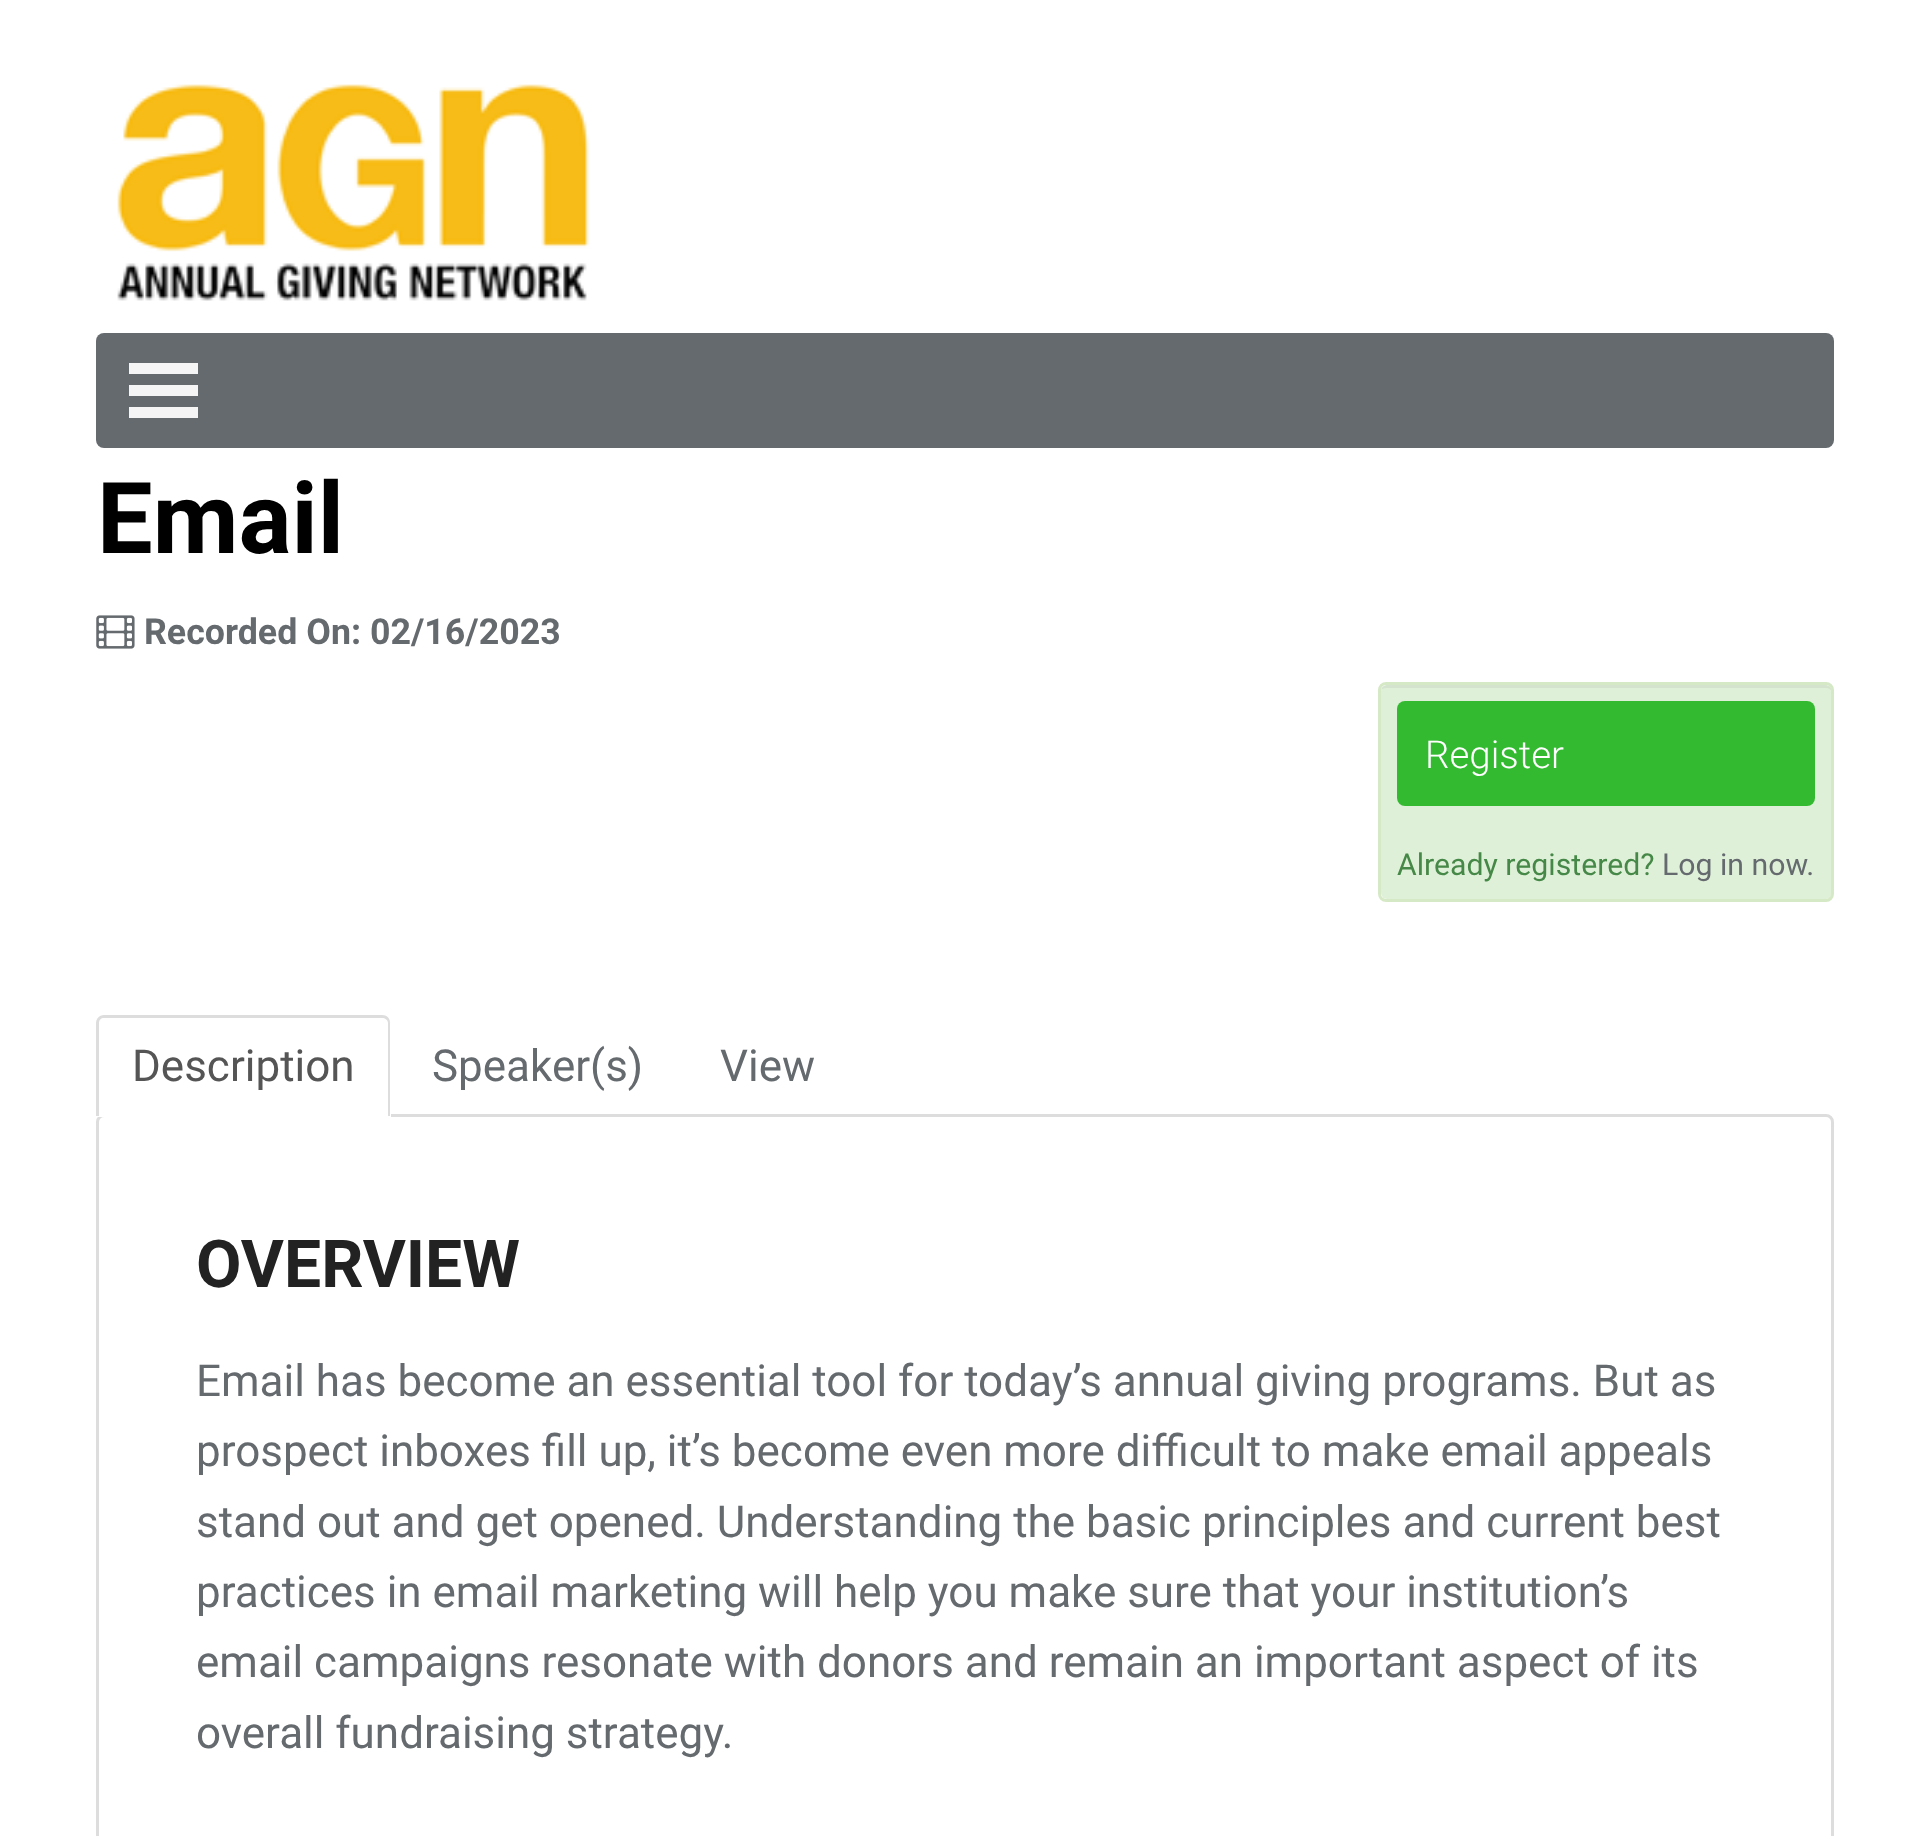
<?xml version="1.0" encoding="UTF-8"?>
<svg xmlns="http://www.w3.org/2000/svg" width="1929" height="1836">
    <rect width="100%" height="100%" fill="#FFFFFF"/>
    <image x="117" y="84" width="473" height="217" href="img_01.png"/>
    <rect x="96" y="333" width="1738" height="115" rx="8" fill="#656A6F"/>
    <rect x="129" y="363" width="69" height="11" fill="#F5F5F5"/>
    <rect x="129" y="385" width="69" height="11" fill="#F5F5F5"/>
    <rect x="129" y="407" width="69" height="11" fill="#F5F5F5"/>
    <text x="97" y="553" font-family="Roboto" font-size="99" font-weight="700" fill="#000000">Email</text>
    <image x="96" y="615" width="39" height="34" href="img_02.png"/>
    <text x="144" y="644" font-family="Roboto" font-size="35.75" font-weight="700" fill="#656A6F">Recorded On: 02/16/2023</text>
    <rect x="1381" y="685" width="451" height="214" rx="6" fill="#DFF0D8"/>
    <path d="M 1386 688 H 1826 C 1829 688 1832 690 1832 693 V 691 C 1832 688 1829 685 1826 685 H 1387 C 1384 685 1381 687 1381 690 C 1382 689 1384 688 1386 688 Z" fill="#000000" fill-opacity="0.05"/>
    <rect x="1379.5" y="683.5" width="453" height="217" rx="6.5" fill="none" stroke="#D6E9C6" stroke-width="3"/>
    <rect x="1397" y="701" width="418" height="105" rx="8" fill="#34BA31"/>
    <text x="1425" y="768" font-family="Roboto" font-size="38.5" font-weight="300" fill="#FFFFFF">Register</text>
    <text x="1397" y="875" font-family="Roboto" font-size="30.25" fill="#468847">Already registered?</text>
    <text x="1662" y="875" font-family="Roboto" font-size="30.25" fill="#656A6F">Log in now.</text>
    <rect x="97.5" y="1115.5" width="1735" height="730" rx="6.5" fill="none" stroke="#DDDDDD" stroke-width="3"/>
    <path d="M 104 1015 H 383 C 387.5 1015 391 1018.5 391 1023 V 1117 H 96 V 1023 C 96 1018.5 99.5 1015 104 1015 Z" fill="#FFFFFF"/>
    <path d="M 104 1015 H 382 C 387 1015 390 1018 390 1023 V 1116 H 96 V 1023 C 96 1018 100 1015 104 1015 Z M 104 1018 H 382 C 385 1018 388 1020 388 1023 V 1116 H 99 V 1023 C 99 1020 101 1018 104 1018 Z" fill="#DDDDDD" fill-rule="evenodd"/>
    <text x="132" y="1081" font-family="Roboto" font-size="44" fill="#555555">Description</text>
    <text x="432" y="1081" font-family="Roboto" font-size="44" fill="#656A6F">Speaker(s)</text>
    <text x="720" y="1081" font-family="Roboto" font-size="44" fill="#656A6F">View</text>
    <text x="196" y="1287" font-family="Roboto" font-size="66" font-weight="700" fill="#222222">OVERVIEW</text>
    <text font-family="Roboto" font-size="44" fill="#656A6F">
        <tspan x="196" y="1396">Email has become an essential tool for today’s annual giving programs. But as</tspan>
        <tspan x="196" y="1466">prospect inboxes fill up, it’s become even more difficult to make email appeals</tspan>
        <tspan x="196" y="1537">stand out and get opened. Understanding the basic principles and current best</tspan>
        <tspan x="196" y="1607">practices in email marketing will help you make sure that your institution’s</tspan>
        <tspan x="196" y="1677">email campaigns resonate with donors and remain an important aspect of its</tspan>
        <tspan x="196" y="1748">overall fundraising strategy.</tspan>
    </text>
</svg>
